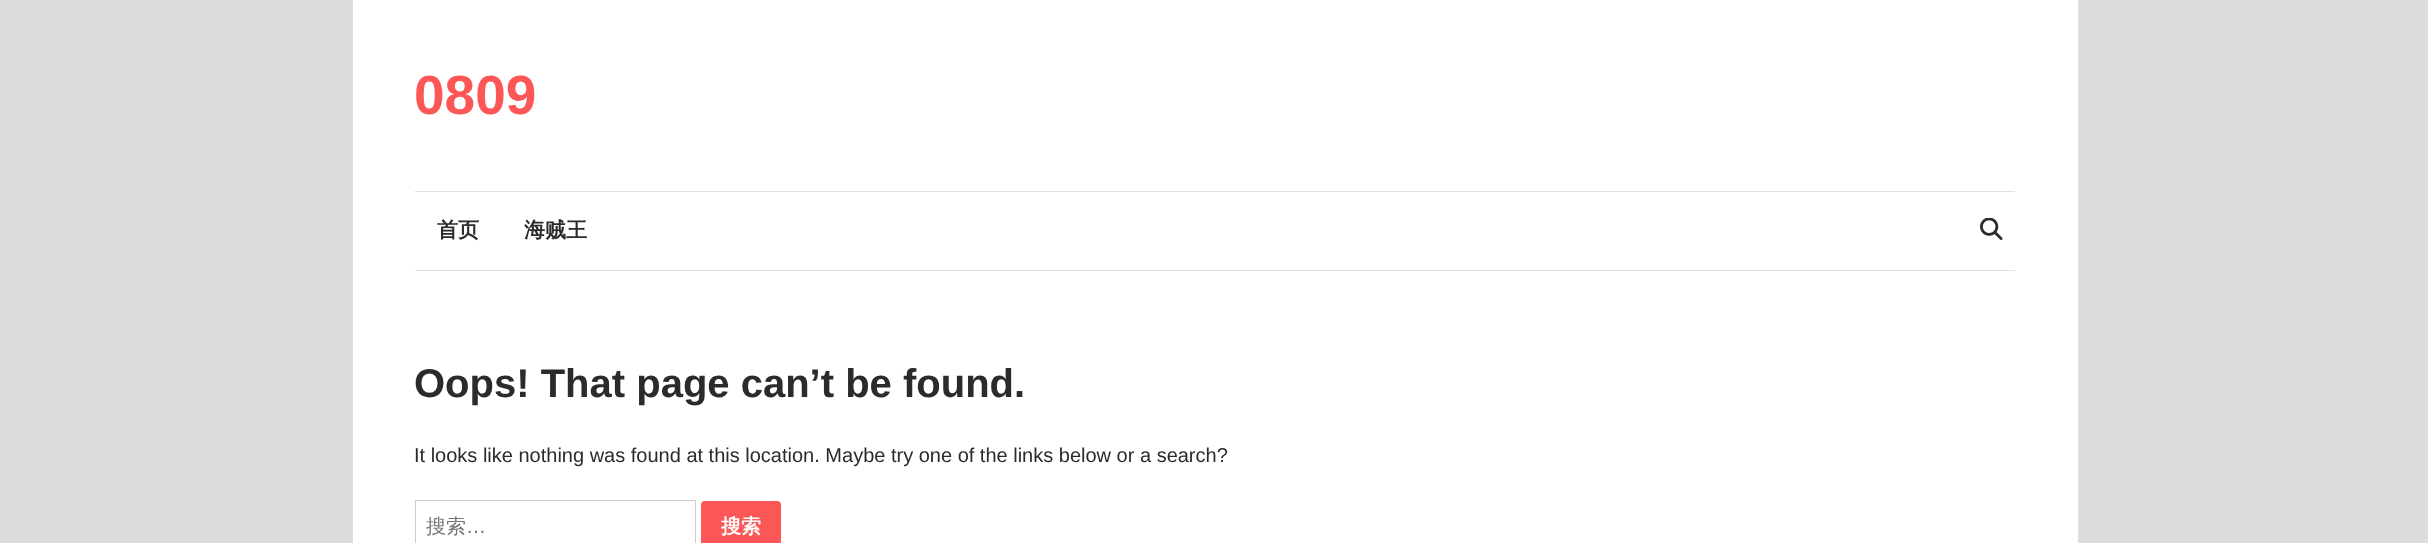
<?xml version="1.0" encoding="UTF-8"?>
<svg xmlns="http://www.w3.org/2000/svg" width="2428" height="543">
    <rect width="100%" height="100%" fill="#DDDDDD"/>
    <rect x="353" y="0" width="1725" height="543" fill="#FFFFFF"/>
    <text x="414" y="114" font-family="Liberation Sans" font-size="55" font-weight="700" fill="#FC5656">0809</text>
    <rect x="415" y="191" width="1600" height="1" fill="#E0E0E0"/>
    <rect x="415" y="270" width="1600" height="1" fill="#E0E0E0"/>
    <text x="437" y="237" font-family="WenQuanYi Zen Hei" font-size="21" font-weight="700" fill="#2C2B2B">首页</text>
    <text x="524" y="237" font-family="WenQuanYi Zen Hei" font-size="21" font-weight="700" fill="#2C2B2B">海贼王</text>
    <image x="1980" y="218" width="23" height="22" href="img_01.png"/>
    <text x="414" y="397" font-family="Liberation Sans" font-size="40" font-weight="700" fill="#2C2B2B">Oops! That page can’t be found.</text>
    <text x="414" y="462" font-family="Liberation Sans" font-size="20" fill="#2C2B2B">It looks like nothing was found at this location. Maybe try one of the links below or a search?</text>
    <rect x="415.5" y="500.5" width="280" height="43" fill="none" stroke="#CCCCCC"/>
    <text x="426" y="533" font-family="WenQuanYi Zen Hei" font-size="20" font-weight="500" fill="#757575">搜索</text>
    <text x="466" y="533" font-family="Liberation Sans" font-size="20" fill="#757575">…</text>
    <rect x="701" y="501" width="80" height="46" rx="4" fill="#FC5656"/>
    <text x="721" y="533" font-family="WenQuanYi Zen Hei" font-size="20" font-weight="700" fill="#FFFFFF">搜索</text>
</svg>
